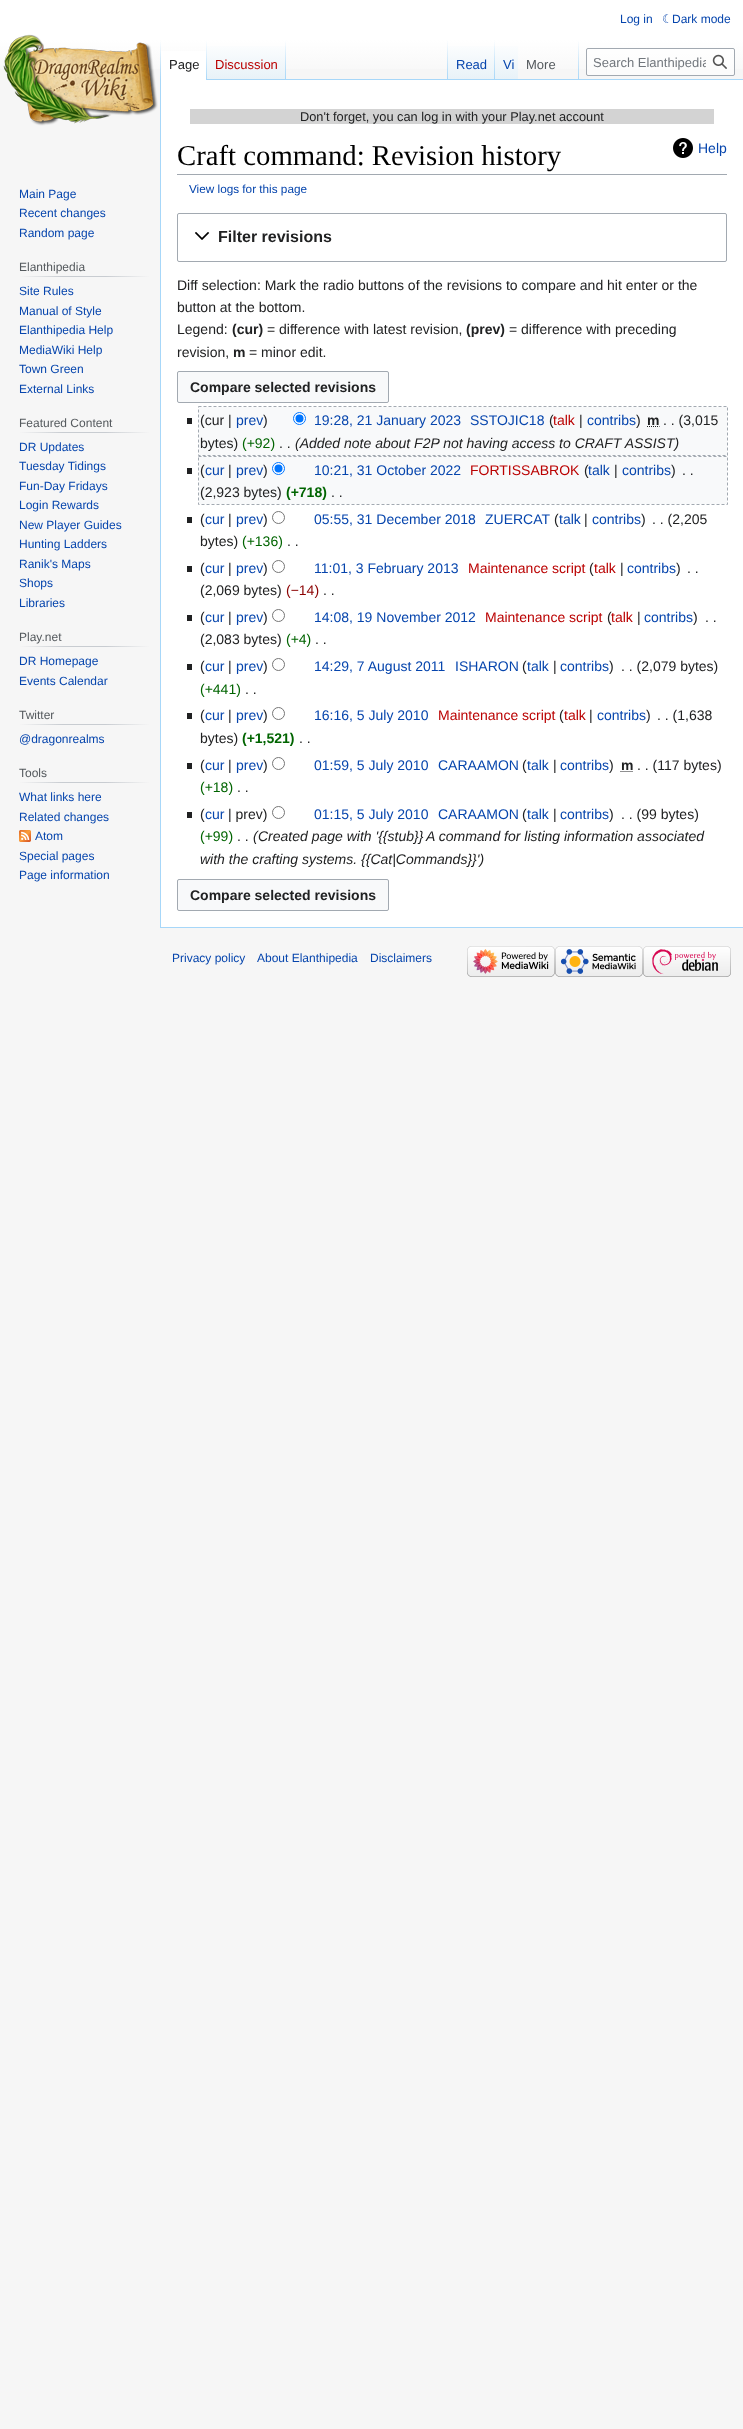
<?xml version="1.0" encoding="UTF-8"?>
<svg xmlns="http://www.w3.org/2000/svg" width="743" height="2429">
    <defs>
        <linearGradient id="g1" gradientUnits="userSpaceOnUse" x1="372" y1="0" x2="372" y2="80"><stop offset="0.5" stop-color="#FFFFFF"/><stop offset="1" stop-color="#F6F6F6"/></linearGradient>
        <linearGradient id="g2" gradientUnits="userSpaceOnUse" x1="161" y1="40" x2="161" y2="80"><stop offset="0" stop-color="#A7D7F9" stop-opacity="0"/><stop offset="1" stop-color="#A7D7F9"/></linearGradient>
        <linearGradient id="g3" gradientUnits="userSpaceOnUse" x1="207" y1="40" x2="207" y2="80"><stop offset="0" stop-color="#FFFFFF"/><stop offset="1" stop-color="#A7D7F9"/></linearGradient>
        <linearGradient id="g4" gradientUnits="userSpaceOnUse" x1="247" y1="80" x2="247" y2="40"><stop offset="0" stop-color="#77C1F6"/><stop offset="0.03" stop-color="#E8F2F8"/><stop offset="1" stop-color="#FFFFFF"/></linearGradient>
        <linearGradient id="g5" gradientUnits="userSpaceOnUse" x1="286" y1="40" x2="286" y2="80"><stop offset="0" stop-color="#A7D7F9" stop-opacity="0"/><stop offset="1" stop-color="#A7D7F9"/></linearGradient>
        <linearGradient id="g6" gradientUnits="userSpaceOnUse" x1="448" y1="40" x2="448" y2="80"><stop offset="0" stop-color="#A7D7F9" stop-opacity="0"/><stop offset="1" stop-color="#A7D7F9"/></linearGradient>
        <linearGradient id="g7" gradientUnits="userSpaceOnUse" x1="472" y1="80" x2="472" y2="40"><stop offset="0" stop-color="#77C1F6"/><stop offset="0.03" stop-color="#E8F2F8"/><stop offset="1" stop-color="#FFFFFF"/></linearGradient>
        <linearGradient id="g8" gradientUnits="userSpaceOnUse" x1="495" y1="40" x2="495" y2="80"><stop offset="0" stop-color="#A7D7F9" stop-opacity="0"/><stop offset="1" stop-color="#A7D7F9"/></linearGradient>
        <linearGradient id="g9" gradientUnits="userSpaceOnUse" x1="507" y1="80" x2="507" y2="40"><stop offset="0" stop-color="#77C1F6"/><stop offset="0.03" stop-color="#E8F2F8"/><stop offset="1" stop-color="#FFFFFF"/></linearGradient>
        <linearGradient id="g10" gradientUnits="userSpaceOnUse" x1="579" y1="40" x2="579" y2="80"><stop offset="0" stop-color="#A7D7F9" stop-opacity="0"/><stop offset="1" stop-color="#A7D7F9"/></linearGradient>
        <clipPath id="clip1"><rect x="593" y="55" width="113" height="15"/></clipPath>
        <linearGradient id="g11" gradientUnits="userSpaceOnUse" x1="19" y1="277" x2="150" y2="277"><stop offset="0" stop-color="#F6F6F6"/><stop offset="0.33" stop-color="#C8CCD1"/><stop offset="0.66" stop-color="#C8CCD1"/><stop offset="1" stop-color="#F6F6F6"/></linearGradient>
        <linearGradient id="g12" gradientUnits="userSpaceOnUse" x1="19" y1="433" x2="150" y2="433"><stop offset="0" stop-color="#F6F6F6"/><stop offset="0.33" stop-color="#C8CCD1"/><stop offset="0.66" stop-color="#C8CCD1"/><stop offset="1" stop-color="#F6F6F6"/></linearGradient>
        <linearGradient id="g13" gradientUnits="userSpaceOnUse" x1="19" y1="647" x2="150" y2="647"><stop offset="0" stop-color="#F6F6F6"/><stop offset="0.33" stop-color="#C8CCD1"/><stop offset="0.66" stop-color="#C8CCD1"/><stop offset="1" stop-color="#F6F6F6"/></linearGradient>
        <linearGradient id="g14" gradientUnits="userSpaceOnUse" x1="19" y1="725" x2="150" y2="725"><stop offset="0" stop-color="#F6F6F6"/><stop offset="0.33" stop-color="#C8CCD1"/><stop offset="0.66" stop-color="#C8CCD1"/><stop offset="1" stop-color="#F6F6F6"/></linearGradient>
        <linearGradient id="g15" gradientUnits="userSpaceOnUse" x1="19" y1="783" x2="150" y2="783"><stop offset="0" stop-color="#F6F6F6"/><stop offset="0.33" stop-color="#C8CCD1"/><stop offset="0.66" stop-color="#C8CCD1"/><stop offset="1" stop-color="#F6F6F6"/></linearGradient>
    </defs>
    <rect width="100%" height="100%" fill="#F6F6F6"/>
    <rect x="0" y="0" width="743" height="69" fill="url(#g1)"/>
    <text x="620" y="23" font-family="Liberation Sans" font-size="12" fill="#0645AD">Log in</text>
    <text x="662" y="23" font-family="DejaVu Sans" font-size="12" fill="#0645AD">☾</text>
    <text x="672" y="23" font-family="Liberation Sans" font-size="12" fill="#0645AD">Dark mode</text>
    <rect x="160" y="927" width="583" height="1" fill="#A7D7F9"/>
    <rect x="160" y="79" width="1" height="849" fill="#A7D7F9"/>
    <rect x="160" y="40" width="1" height="40" fill="url(#g2)"/>
    <rect x="161" y="51" width="45" height="29" fill="#FFFFFF"/>
    <rect x="206" y="40" width="1" height="40" fill="url(#g3)"/>
    <text x="169" y="69" font-family="Liberation Sans" font-size="13" fill="#202122">Page</text>
    <rect x="207" y="46" width="79" height="34" fill="url(#g4)"/>
    <rect x="285" y="40" width="1" height="40" fill="url(#g5)"/>
    <text x="215" y="69" font-family="Liberation Sans" font-size="13" fill="#BA0000">Discussion</text>
    <rect x="286" y="79" width="457" height="1" fill="#A7D7F9"/>
    <rect x="447" y="40" width="1" height="40" fill="url(#g6)"/>
    <rect x="448" y="46" width="47" height="33" fill="url(#g7)"/>
    <rect x="494" y="40" width="1" height="40" fill="url(#g8)"/>
    <text x="456" y="69" font-family="Liberation Sans" font-size="13" fill="#0645AD">Read</text>
    <rect x="495" y="46" width="23" height="33" fill="url(#g9)"/>
    <text x="503" y="69" font-family="Liberation Sans" font-size="13" fill="#0645AD">Vi</text>
    <rect x="578" y="40" width="1" height="40" fill="url(#g10)"/>
    <text x="526" y="69" font-family="Liberation Sans" font-size="13" fill="#54595D">More</text>
    <rect x="586.5" y="48.5" width="148" height="27" rx="1.5" fill="#FFFFFF" fill-opacity="0.5" stroke="#A2A9B1"/>
    <g clip-path="url(#clip1)">
        <text x="593" y="67" font-family="Liberation Sans" font-size="13" fill="#72777D">Search Elanthipedia</text>
    </g>
    <image x="712" y="54" width="15" height="15" href="img_01.png"/>
    <image x="3" y="34" width="155" height="92" href="img_02.png"/>
    <text font-family="Liberation Sans" font-size="12" fill="#0645AD">
        <tspan x="19" y="198">Main Page</tspan>
        <tspan x="19" y="217">Recent changes</tspan>
        <tspan x="19" y="237">Random page</tspan>
    </text>
    <rect x="19" y="276" width="131" height="1" fill="url(#g11)"/>
    <text x="19" y="271" font-family="Liberation Sans" font-size="12" fill="#54595D">Elanthipedia</text>
    <text font-family="Liberation Sans" font-size="12" fill="#0645AD">
        <tspan x="19" y="295">Site Rules</tspan>
        <tspan x="19" y="315">Manual of Style</tspan>
        <tspan x="19" y="334">Elanthipedia Help</tspan>
        <tspan x="19" y="354">MediaWiki Help</tspan>
        <tspan x="19" y="373">Town Green</tspan>
        <tspan x="19" y="393">External Links</tspan>
    </text>
    <rect x="19" y="432" width="131" height="1" fill="url(#g12)"/>
    <text x="19" y="427" font-family="Liberation Sans" font-size="12" fill="#54595D">Featured Content</text>
    <text font-family="Liberation Sans" font-size="12" fill="#0645AD">
        <tspan x="19" y="451">DR Updates</tspan>
        <tspan x="19" y="470">Tuesday Tidings</tspan>
        <tspan x="19" y="490">Fun-Day Fridays</tspan>
        <tspan x="19" y="509">Login Rewards</tspan>
        <tspan x="19" y="529">New Player Guides</tspan>
        <tspan x="19" y="548">Hunting Ladders</tspan>
        <tspan x="19" y="568">Ranik's Maps</tspan>
        <tspan x="19" y="587">Shops</tspan>
        <tspan x="19" y="607">Libraries</tspan>
    </text>
    <rect x="19" y="646" width="131" height="1" fill="url(#g13)"/>
    <text x="19" y="641" font-family="Liberation Sans" font-size="12" fill="#54595D">Play.net</text>
    <text font-family="Liberation Sans" font-size="12" fill="#0645AD">
        <tspan x="19" y="665">DR Homepage</tspan>
        <tspan x="19" y="685">Events Calendar</tspan>
    </text>
    <rect x="19" y="724" width="131" height="1" fill="url(#g14)"/>
    <text x="19" y="719" font-family="Liberation Sans" font-size="12" fill="#54595D">Twitter</text>
    <text x="19" y="743" font-family="Liberation Sans" font-size="12" fill="#0645AD">@dragonrealms</text>
    <rect x="19" y="782" width="131" height="1" fill="url(#g15)"/>
    <text x="19" y="777" font-family="Liberation Sans" font-size="12" fill="#54595D">Tools</text>
    <text font-family="Liberation Sans" font-size="12" fill="#0645AD">
        <tspan x="19" y="801">What links here</tspan>
        <tspan x="19" y="821">Related changes</tspan>
    </text>
    <image x="19" y="830" width="12" height="12" href="img_03.png"/>
    <text x="35" y="840" font-family="Liberation Sans" font-size="12" fill="#0645AD">Atom</text>
    <text font-family="Liberation Sans" font-size="12" fill="#0645AD">
        <tspan x="19" y="860">Special pages</tspan>
        <tspan x="19" y="879">Page information</tspan>
    </text>
    <rect x="161" y="80" width="582" height="847" fill="#FFFFFF"/>
    <rect x="190" y="109" width="524" height="15" fill="#D3D3D3"/>
    <text x="300" y="121" font-family="Liberation Sans" font-size="12.8" fill="#202122">Don't forget, you can log in with your Play.net account</text>
    <rect x="177" y="174" width="550" height="1" fill="#A2A9B1"/>
    <text x="177" y="165" font-family="Liberation Serif" font-size="28.75" fill="#000000">Craft command: Revision history</text>
    <image x="673" y="138" width="20" height="20" href="img_04.png"/>
    <text x="698" y="153" font-family="Liberation Sans" font-size="14" fill="#0645AD">Help</text>
    <text x="189" y="193" font-family="Liberation Sans" font-size="11.75" fill="#0645AD">View logs for this page</text>
    <rect x="177.5" y="213.5" width="549" height="48" rx="1.5" fill="none" stroke="#A2A9B1"/>
    <image x="195" y="232" width="15" height="8" href="img_05.png"/>
    <text x="218" y="242" font-family="Liberation Sans" font-size="16" font-weight="700" fill="#202122">Filter revisions</text>
    <text font-family="Liberation Sans" font-size="14" fill="#202122">
        <tspan x="177" y="290">Diff selection: Mark the radio buttons of the revisions to compare and hit enter or the</tspan>
        <tspan x="177" y="312">button at the bottom.</tspan>
        <tspan x="177" y="334">Legend:</tspan>
    </text>
    <text x="232" y="334" font-family="Liberation Sans" font-size="14" font-weight="700" fill="#202122">(cur)</text>
    <text x="267" y="334" font-family="Liberation Sans" font-size="14" fill="#202122">= difference with latest revision,</text>
    <text x="466" y="334" font-family="Liberation Sans" font-size="14" font-weight="700" fill="#202122">(prev)</text>
    <text x="509" y="334" font-family="Liberation Sans" font-size="14" fill="#202122">= difference with preceding</text>
    <text x="177" y="357" font-family="Liberation Sans" font-size="14" fill="#202122">revision,</text>
    <text x="233" y="357" font-family="Liberation Sans" font-size="14" font-weight="700" fill="#202122">m</text>
    <text x="249" y="357" font-family="Liberation Sans" font-size="14" fill="#202122">= minor edit.</text>
    <rect x="177.5" y="371.5" width="211" height="31" rx="1.5" fill="#F8F9FA" stroke="#A2A9B1"/>
    <text x="190" y="392" font-family="Liberation Sans" font-size="14" font-weight="700" fill="#202122">Compare selected revisions</text>
    <rect x="199" y="407" width="528" height="48" fill="#F8F9FA"/>
    <rect x="187" y="418" width="5" height="6" fill="#202122"/>
    <text x="200" y="425" font-family="Liberation Sans" font-size="14" fill="#202122">(cur |</text>
    <text x="236" y="425" font-family="Liberation Sans" font-size="14" fill="#0645AD">prev</text>
    <text x="263" y="425" font-family="Liberation Sans" font-size="14" fill="#202122">)</text>
    <circle cx="299.5" cy="418.5" r="6" fill="#FFFFFF" stroke="#0075FF"/>
    <circle cx="299.5" cy="418.5" r="4" fill="#0075FF"/>
    <text x="314" y="425" font-family="Liberation Sans" font-size="14" fill="#0645AD">19:28, 21 January 2023</text>
    <text x="470" y="425" font-family="Liberation Sans" font-size="14" fill="#0645AD">SSTOJIC18</text>
    <text x="549" y="425" font-family="Liberation Sans" font-size="14" fill="#202122">(</text>
    <text x="553" y="425" font-family="Liberation Sans" font-size="14" fill="#BA0000">talk</text>
    <text x="579" y="425" font-family="Liberation Sans" font-size="14" fill="#202122">|</text>
    <text x="587" y="425" font-family="Liberation Sans" font-size="14" fill="#0645AD">contribs</text>
    <text x="636" y="425" font-family="Liberation Sans" font-size="14" fill="#202122">)</text>
    <text x="647" y="425" font-family="Liberation Sans" font-size="14" font-weight="700" fill="#202122">m</text>
    <path d="M 647 426.5 H 659.5" fill="none" stroke="#202122" stroke-dasharray="1 1"/>
    <text x="663" y="425" font-family="Liberation Sans" font-size="14" fill="#202122">. . (3,015</text>
    <text x="200" y="448" font-family="Liberation Sans" font-size="14" fill="#202122">bytes)</text>
    <text x="242" y="448" font-family="Liberation Sans" font-size="14" fill="#006400">(+92)</text>
    <text x="279" y="448" font-family="Liberation Sans" font-size="14" fill="#202122">. .</text>
    <text x="295" y="448" font-family="Liberation Sans" font-size="14" font-style="italic" fill="#202122">(Added note about F2P not having access to CRAFT ASSIST)</text>
    <path d="M 198.5 406.5 H 727.5 V 455.5 H 198.5 Z" fill="none" stroke="#A2A9B1" stroke-dasharray="3 2"/>
    <rect x="199" y="457" width="528" height="47" fill="#F8F9FA"/>
    <rect x="187" y="468" width="5" height="6" fill="#202122"/>
    <text x="200" y="475" font-family="Liberation Sans" font-size="14" fill="#202122">(</text>
    <text x="205" y="475" font-family="Liberation Sans" font-size="14" fill="#0645AD">cur</text>
    <text x="228" y="475" font-family="Liberation Sans" font-size="14" fill="#202122">|</text>
    <text x="236" y="475" font-family="Liberation Sans" font-size="14" fill="#0645AD">prev</text>
    <text x="263" y="475" font-family="Liberation Sans" font-size="14" fill="#202122">)</text>
    <circle cx="278.5" cy="468.5" r="6" fill="#FFFFFF" stroke="#0075FF"/>
    <circle cx="278.5" cy="468.5" r="4" fill="#0075FF"/>
    <text x="314" y="475" font-family="Liberation Sans" font-size="14" fill="#0645AD">10:21, 31 October 2022</text>
    <text x="470" y="475" font-family="Liberation Sans" font-size="14" fill="#BA0000">FORTISSABROK</text>
    <text x="584" y="475" font-family="Liberation Sans" font-size="14" fill="#202122">(</text>
    <text x="588" y="475" font-family="Liberation Sans" font-size="14" fill="#0645AD">talk</text>
    <text x="614" y="475" font-family="Liberation Sans" font-size="14" fill="#202122">|</text>
    <text x="622" y="475" font-family="Liberation Sans" font-size="14" fill="#0645AD">contribs</text>
    <text x="671" y="475" font-family="Liberation Sans" font-size="14" fill="#202122">)</text>
    <text x="682" y="475" font-family="Liberation Sans" font-size="14" fill="#202122">. .</text>
    <text x="200" y="497" font-family="Liberation Sans" font-size="14" fill="#202122">(2,923 bytes)</text>
    <text x="286" y="497" font-family="Liberation Sans" font-size="14" font-weight="700" fill="#006400">(+718)</text>
    <text x="331" y="497" font-family="Liberation Sans" font-size="14" fill="#202122">. .</text>
    <path d="M 198.5 456.5 H 727.5 V 504.5 H 198.5 Z" fill="none" stroke="#A2A9B1" stroke-dasharray="3 2"/>
    <rect x="187" y="517" width="5" height="6" fill="#202122"/>
    <text x="200" y="524" font-family="Liberation Sans" font-size="14" fill="#202122">(</text>
    <text x="205" y="524" font-family="Liberation Sans" font-size="14" fill="#0645AD">cur</text>
    <text x="228" y="524" font-family="Liberation Sans" font-size="14" fill="#202122">|</text>
    <text x="236" y="524" font-family="Liberation Sans" font-size="14" fill="#0645AD">prev</text>
    <text x="263" y="524" font-family="Liberation Sans" font-size="14" fill="#202122">)</text>
    <circle cx="278.5" cy="517.5" r="6" fill="none" stroke="#767676"/>
    <text x="314" y="524" font-family="Liberation Sans" font-size="14" fill="#0645AD">05:55, 31 December 2018</text>
    <text x="485" y="524" font-family="Liberation Sans" font-size="14" fill="#0645AD">ZUERCAT</text>
    <text x="554" y="524" font-family="Liberation Sans" font-size="14" fill="#202122">(</text>
    <text x="559" y="524" font-family="Liberation Sans" font-size="14" fill="#0645AD">talk</text>
    <text x="584" y="524" font-family="Liberation Sans" font-size="14" fill="#202122">|</text>
    <text x="592" y="524" font-family="Liberation Sans" font-size="14" fill="#0645AD">contribs</text>
    <text x="641" y="524" font-family="Liberation Sans" font-size="14" fill="#202122">)</text>
    <text x="652" y="524" font-family="Liberation Sans" font-size="14" fill="#202122">. . (2,205</text>
    <text x="200" y="546" font-family="Liberation Sans" font-size="14" fill="#202122">bytes)</text>
    <text x="242" y="546" font-family="Liberation Sans" font-size="14" fill="#006400">(+136)</text>
    <text x="287" y="546" font-family="Liberation Sans" font-size="14" fill="#202122">. .</text>
    <rect x="187" y="566" width="5" height="6" fill="#202122"/>
    <text x="200" y="573" font-family="Liberation Sans" font-size="14" fill="#202122">(</text>
    <text x="205" y="573" font-family="Liberation Sans" font-size="14" fill="#0645AD">cur</text>
    <text x="228" y="573" font-family="Liberation Sans" font-size="14" fill="#202122">|</text>
    <text x="236" y="573" font-family="Liberation Sans" font-size="14" fill="#0645AD">prev</text>
    <text x="263" y="573" font-family="Liberation Sans" font-size="14" fill="#202122">)</text>
    <circle cx="278.5" cy="566.5" r="6" fill="none" stroke="#767676"/>
    <text x="314" y="573" font-family="Liberation Sans" font-size="14" fill="#0645AD">11:01, 3 February 2013</text>
    <text x="468" y="573" font-family="Liberation Sans" font-size="14" fill="#BA0000">Maintenance script</text>
    <text x="589" y="573" font-family="Liberation Sans" font-size="14" fill="#202122">(</text>
    <text x="594" y="573" font-family="Liberation Sans" font-size="14" fill="#BA0000">talk</text>
    <text x="620" y="573" font-family="Liberation Sans" font-size="14" fill="#202122">|</text>
    <text x="627" y="573" font-family="Liberation Sans" font-size="14" fill="#0645AD">contribs</text>
    <text x="676" y="573" font-family="Liberation Sans" font-size="14" fill="#202122">)</text>
    <text x="687" y="573" font-family="Liberation Sans" font-size="14" fill="#202122">. .</text>
    <text x="200" y="595" font-family="Liberation Sans" font-size="14" fill="#202122">(2,069 bytes)</text>
    <text x="286" y="595" font-family="Liberation Sans" font-size="14" fill="#8B0000">(−14)</text>
    <text x="323" y="595" font-family="Liberation Sans" font-size="14" fill="#202122">. .</text>
    <rect x="187" y="615" width="5" height="6" fill="#202122"/>
    <text x="200" y="622" font-family="Liberation Sans" font-size="14" fill="#202122">(</text>
    <text x="205" y="622" font-family="Liberation Sans" font-size="14" fill="#0645AD">cur</text>
    <text x="228" y="622" font-family="Liberation Sans" font-size="14" fill="#202122">|</text>
    <text x="236" y="622" font-family="Liberation Sans" font-size="14" fill="#0645AD">prev</text>
    <text x="263" y="622" font-family="Liberation Sans" font-size="14" fill="#202122">)</text>
    <circle cx="278.5" cy="615.5" r="6" fill="none" stroke="#767676"/>
    <text x="314" y="622" font-family="Liberation Sans" font-size="14" fill="#0645AD">14:08, 19 November 2012</text>
    <text x="485" y="622" font-family="Liberation Sans" font-size="14" fill="#BA0000">Maintenance script</text>
    <text x="607" y="622" font-family="Liberation Sans" font-size="14" fill="#202122">(</text>
    <text x="611" y="622" font-family="Liberation Sans" font-size="14" fill="#BA0000">talk</text>
    <text x="637" y="622" font-family="Liberation Sans" font-size="14" fill="#202122">|</text>
    <text x="644" y="622" font-family="Liberation Sans" font-size="14" fill="#0645AD">contribs</text>
    <text x="693" y="622" font-family="Liberation Sans" font-size="14" fill="#202122">)</text>
    <text x="705" y="622" font-family="Liberation Sans" font-size="14" fill="#202122">. .</text>
    <text x="200" y="644" font-family="Liberation Sans" font-size="14" fill="#202122">(2,083 bytes)</text>
    <text x="286" y="644" font-family="Liberation Sans" font-size="14" fill="#006400">(+4)</text>
    <text x="315" y="644" font-family="Liberation Sans" font-size="14" fill="#202122">. .</text>
    <rect x="187" y="664" width="5" height="6" fill="#202122"/>
    <text x="200" y="671" font-family="Liberation Sans" font-size="14" fill="#202122">(</text>
    <text x="205" y="671" font-family="Liberation Sans" font-size="14" fill="#0645AD">cur</text>
    <text x="228" y="671" font-family="Liberation Sans" font-size="14" fill="#202122">|</text>
    <text x="236" y="671" font-family="Liberation Sans" font-size="14" fill="#0645AD">prev</text>
    <text x="263" y="671" font-family="Liberation Sans" font-size="14" fill="#202122">)</text>
    <circle cx="278.5" cy="664.5" r="6" fill="none" stroke="#767676"/>
    <text x="314" y="671" font-family="Liberation Sans" font-size="14" fill="#0645AD">14:29, 7 August 2011</text>
    <text x="455" y="671" font-family="Liberation Sans" font-size="14" fill="#0645AD">ISHARON</text>
    <text x="522" y="671" font-family="Liberation Sans" font-size="14" fill="#202122">(</text>
    <text x="527" y="671" font-family="Liberation Sans" font-size="14" fill="#0645AD">talk</text>
    <text x="553" y="671" font-family="Liberation Sans" font-size="14" fill="#202122">|</text>
    <text x="560" y="671" font-family="Liberation Sans" font-size="14" fill="#0645AD">contribs</text>
    <text x="609" y="671" font-family="Liberation Sans" font-size="14" fill="#202122">)</text>
    <text x="621" y="671" font-family="Liberation Sans" font-size="14" fill="#202122">. . (2,079 bytes)</text>
    <text x="200" y="694" font-family="Liberation Sans" font-size="14" fill="#006400">(+441)</text>
    <text x="245" y="694" font-family="Liberation Sans" font-size="14" fill="#202122">. .</text>
    <rect x="187" y="713" width="5" height="6" fill="#202122"/>
    <text x="200" y="720" font-family="Liberation Sans" font-size="14" fill="#202122">(</text>
    <text x="205" y="720" font-family="Liberation Sans" font-size="14" fill="#0645AD">cur</text>
    <text x="228" y="720" font-family="Liberation Sans" font-size="14" fill="#202122">|</text>
    <text x="236" y="720" font-family="Liberation Sans" font-size="14" fill="#0645AD">prev</text>
    <text x="263" y="720" font-family="Liberation Sans" font-size="14" fill="#202122">)</text>
    <circle cx="278.5" cy="713.5" r="6" fill="none" stroke="#767676"/>
    <text x="314" y="720" font-family="Liberation Sans" font-size="14" fill="#0645AD">16:16, 5 July 2010</text>
    <text x="438" y="720" font-family="Liberation Sans" font-size="14" fill="#BA0000">Maintenance script</text>
    <text x="559" y="720" font-family="Liberation Sans" font-size="14" fill="#202122">(</text>
    <text x="564" y="720" font-family="Liberation Sans" font-size="14" fill="#BA0000">talk</text>
    <text x="589" y="720" font-family="Liberation Sans" font-size="14" fill="#202122">|</text>
    <text x="597" y="720" font-family="Liberation Sans" font-size="14" fill="#0645AD">contribs</text>
    <text x="646" y="720" font-family="Liberation Sans" font-size="14" fill="#202122">)</text>
    <text x="657" y="720" font-family="Liberation Sans" font-size="14" fill="#202122">. . (1,638</text>
    <text x="200" y="743" font-family="Liberation Sans" font-size="14" fill="#202122">bytes)</text>
    <text x="242" y="743" font-family="Liberation Sans" font-size="14" font-weight="700" fill="#006400">(+1,521)</text>
    <text x="299" y="743" font-family="Liberation Sans" font-size="14" fill="#202122">. .</text>
    <rect x="187" y="763" width="5" height="6" fill="#202122"/>
    <text x="200" y="770" font-family="Liberation Sans" font-size="14" fill="#202122">(</text>
    <text x="205" y="770" font-family="Liberation Sans" font-size="14" fill="#0645AD">cur</text>
    <text x="228" y="770" font-family="Liberation Sans" font-size="14" fill="#202122">|</text>
    <text x="236" y="770" font-family="Liberation Sans" font-size="14" fill="#0645AD">prev</text>
    <text x="263" y="770" font-family="Liberation Sans" font-size="14" fill="#202122">)</text>
    <circle cx="278.5" cy="763.5" r="6" fill="none" stroke="#767676"/>
    <text x="314" y="770" font-family="Liberation Sans" font-size="14" fill="#0645AD">01:59, 5 July 2010</text>
    <text x="438" y="770" font-family="Liberation Sans" font-size="14" fill="#0645AD">CARAAMON</text>
    <text x="522" y="770" font-family="Liberation Sans" font-size="14" fill="#202122">(</text>
    <text x="527" y="770" font-family="Liberation Sans" font-size="14" fill="#0645AD">talk</text>
    <text x="553" y="770" font-family="Liberation Sans" font-size="14" fill="#202122">|</text>
    <text x="560" y="770" font-family="Liberation Sans" font-size="14" fill="#0645AD">contribs</text>
    <text x="609" y="770" font-family="Liberation Sans" font-size="14" fill="#202122">)</text>
    <text x="621" y="770" font-family="Liberation Sans" font-size="14" font-weight="700" fill="#202122">m</text>
    <path d="M 620.5 771.5 H 633" fill="none" stroke="#202122" stroke-dasharray="1 1"/>
    <text x="637" y="770" font-family="Liberation Sans" font-size="14" fill="#202122">. . (117 bytes)</text>
    <text x="200" y="792" font-family="Liberation Sans" font-size="14" fill="#006400">(+18)</text>
    <text x="237" y="792" font-family="Liberation Sans" font-size="14" fill="#202122">. .</text>
    <rect x="187" y="812" width="5" height="6" fill="#202122"/>
    <text x="200" y="819" font-family="Liberation Sans" font-size="14" fill="#202122">(</text>
    <text x="205" y="819" font-family="Liberation Sans" font-size="14" fill="#0645AD">cur</text>
    <text x="228" y="819" font-family="Liberation Sans" font-size="14" fill="#202122">| prev)</text>
    <circle cx="278.5" cy="812.5" r="6" fill="none" stroke="#767676"/>
    <text x="314" y="819" font-family="Liberation Sans" font-size="14" fill="#0645AD">01:15, 5 July 2010</text>
    <text x="438" y="819" font-family="Liberation Sans" font-size="14" fill="#0645AD">CARAAMON</text>
    <text x="522" y="819" font-family="Liberation Sans" font-size="14" fill="#202122">(</text>
    <text x="527" y="819" font-family="Liberation Sans" font-size="14" fill="#0645AD">talk</text>
    <text x="553" y="819" font-family="Liberation Sans" font-size="14" fill="#202122">|</text>
    <text x="560" y="819" font-family="Liberation Sans" font-size="14" fill="#0645AD">contribs</text>
    <text x="609" y="819" font-family="Liberation Sans" font-size="14" fill="#202122">)</text>
    <text x="621" y="819" font-family="Liberation Sans" font-size="14" fill="#202122">. . (99 bytes)</text>
    <text x="200" y="841" font-family="Liberation Sans" font-size="14" fill="#006400">(+99)</text>
    <text x="237" y="841" font-family="Liberation Sans" font-size="14" fill="#202122">. .</text>
    <text x="253" y="841" font-family="Liberation Sans" font-size="14" font-style="italic" fill="#202122">(</text>
    <text x="258" y="841" font-family="Liberation Sans" font-size="14" font-style="italic" fill="#202122">Created page with '{{stub}}</text>
    <text x="426" y="841" font-family="Liberation Sans" font-size="14" font-style="italic" fill="#202122">A command for listing information associated</text>
    <text x="200" y="864" font-family="Liberation Sans" font-size="14" font-style="italic" fill="#202122">with the crafting systems. {{Cat|Commands}}')</text>
    <rect x="177.5" y="879.5" width="211" height="31" rx="1.5" fill="#F8F9FA" stroke="#A2A9B1"/>
    <text x="190" y="900" font-family="Liberation Sans" font-size="14" font-weight="700" fill="#202122">Compare selected revisions</text>
    <text x="172" y="962" font-family="Liberation Sans" font-size="12" fill="#0645AD">Privacy policy</text>
    <text x="257" y="962" font-family="Liberation Sans" font-size="12" fill="#0645AD">About Elanthipedia</text>
    <text x="370" y="962" font-family="Liberation Sans" font-size="12" fill="#0645AD">Disclaimers</text>
    <image x="467" y="946" width="88" height="31" href="img_06.png"/>
    <image x="555" y="946" width="88" height="31" href="img_07.png"/>
    <image x="643" y="946" width="88" height="31" href="img_08.png"/>
</svg>
